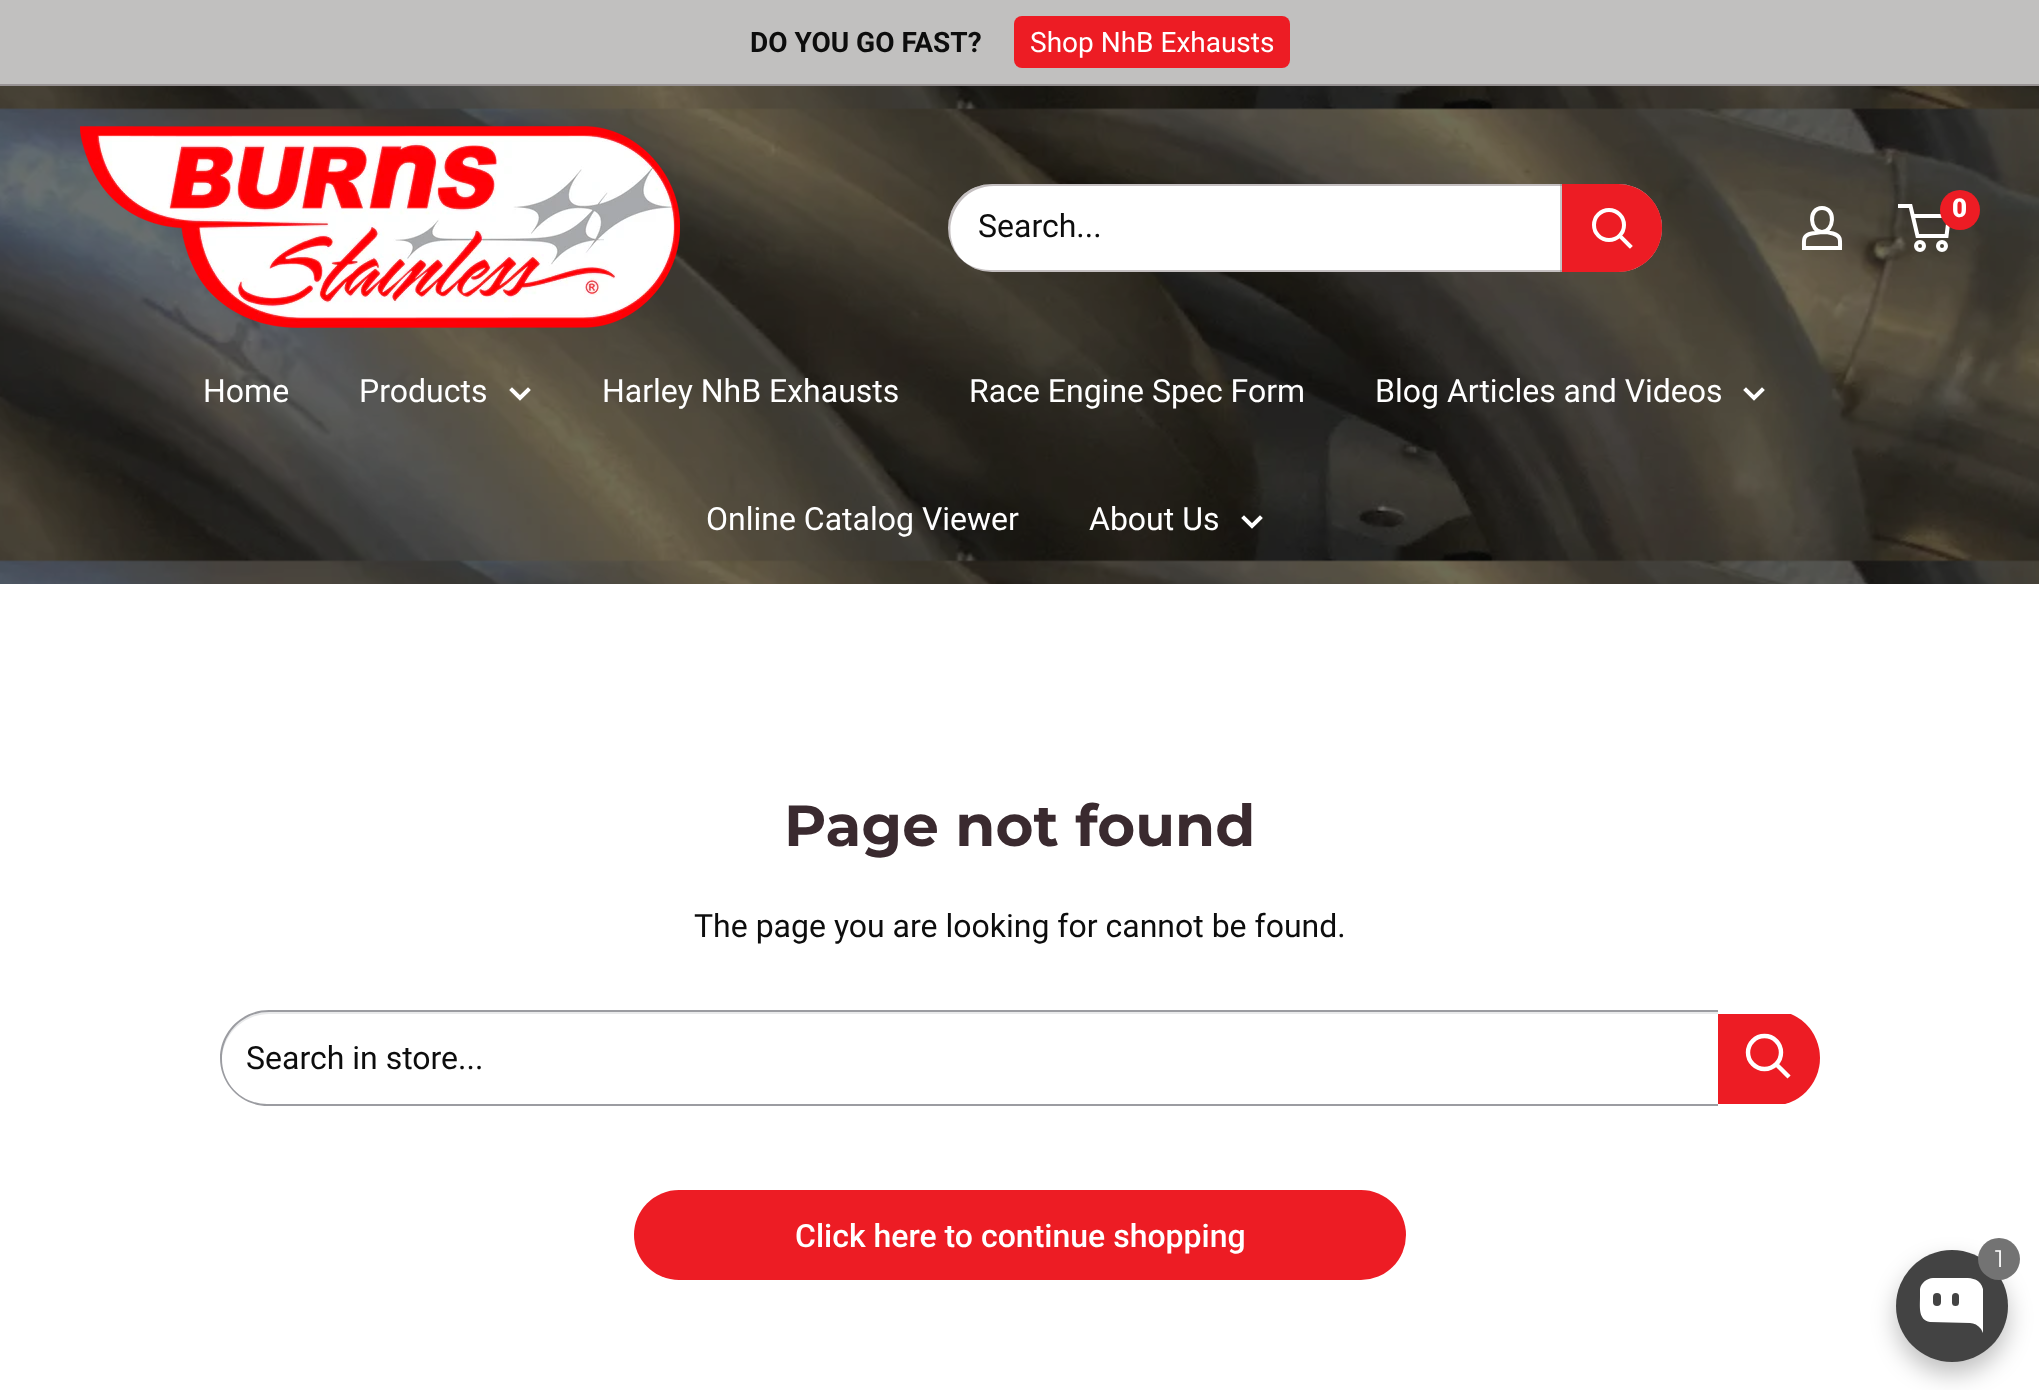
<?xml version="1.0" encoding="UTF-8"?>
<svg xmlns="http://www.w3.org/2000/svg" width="2039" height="1390">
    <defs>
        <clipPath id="clip1"><rect x="220" y="1010" width="1600" height="96" rx="48"/></clipPath>
        <filter id="blur1" x="-50%" y="-200%" width="200%" height="500%"><feGaussianBlur stdDeviation="12"/></filter>
    </defs>
    <rect width="100%" height="100%" fill="#FFFFFF"/>
    <rect x="0" y="0" width="2039" height="84" fill="#C1C0BF"/>
    <rect x="0" y="84" width="2039" height="2" fill="#989394"/>
    <text x="750" y="52" font-family="Roboto" font-size="28" font-weight="700" fill="#0D0D0D">DO YOU GO FAST?</text>
    <rect x="1014" y="16" width="276" height="52" rx="8" fill="#ED1C24"/>
    <text x="1030" y="52" font-family="Roboto" font-size="28" fill="#FFFFFF">Shop NhB Exhausts</text>
    <image x="0" y="86" width="2039" height="498" href="img_01.png"/>
    <rect x="0" y="86" width="2039" height="242" fill="#000000" fill-opacity="0.35"/>
    <image x="80" y="126" width="600" height="202" href="img_02.png"/>
    <path d="M 1822 232 C 1826 232 1829.5 232.5 1833 233.5 C 1841.5 236 1840 240.5 1840 248 H 1804 C 1804 240 1802.5 235.5 1811.5 233.5 Z M 1822 232 C 1810 232 1807.5 208 1822 208 C 1836.5 208 1834 232 1822 232 Z" fill="none" stroke="#FFFFFF" stroke-width="4"/>
    <circle cx="1920" cy="246" r="4" fill="none" stroke="#FFFFFF" stroke-width="4"/>
    <circle cx="1942" cy="246" r="4" fill="none" stroke="#FFFFFF" stroke-width="4"/>
    <path d="M 1912.5 216 H 1949 L 1946.5 236 H 1917.5 L 1910.5 206 H 1898" fill="none" stroke="#FFFFFF" stroke-width="4"/>
    <circle cx="1960" cy="210" r="20" fill="#ED1C24"/>
    <text x="1952" y="217" font-family="Roboto" font-size="26" font-weight="900" fill="#FFFFFF">0</text>
    <rect x="948" y="184" width="714" height="88" rx="44" fill="#FFFFFF"/>
    <path d="M 958 256 C 966 266 978 272 992 272 H 1618 C 1642 272 1662 252 1662 228 C 1662 214 1656 202 1646 194 C 1655 202 1660 214 1660 226 C 1660 250 1640 270 1616 270 H 990 C 978 270 966 265 958 256 Z" fill="#3A2A2F" fill-opacity="0.3"/>
    <path d="M 994 186 H 1620 C 1632 186 1644 191 1652 200 C 1644 190 1632 184 1618 184 H 992 C 968 184 948 204 948 228 C 948 242 954 254 964 262 C 936 235 954 186 994 186 Z" fill="#3A2A2F" fill-opacity="0.3"/>
    <rect x="1560" y="184" width="2" height="88" fill="#808080" fill-opacity="0.46"/>
    <text x="978" y="237" font-family="Roboto" font-size="32" fill="#0D0D0D">Search...</text>
    <path d="M 1562 184 H 1618 C 1642.5 184 1662 203.5 1662 228 C 1662 252.5 1642.5 272 1618 272 H 1562 Z" fill="#ED1C24"/>
    <path d="M 1630 246 L 1620 236" fill="none" stroke="#FFFFFF" stroke-width="4" stroke-linecap="square"/>
    <circle cx="1609" cy="225" r="15" fill="none" stroke="#FFFFFF" stroke-width="4"/>
    <rect x="0" y="328" width="2039" height="256" fill="#000000" fill-opacity="0.35"/>
    <text x="203" y="402" font-family="Roboto" font-size="32" fill="#FFFFFF">Home</text>
    <text x="359" y="402" font-family="Roboto" font-size="32" fill="#FFFFFF">Products</text>
    <path d="M 528 390 L 520 398 L 512 390" fill="none" stroke="#FFFFFF" stroke-width="4" stroke-linecap="square"/>
    <text x="602" y="402" font-family="Roboto" font-size="32" fill="#FFFFFF">Harley NhB Exhausts</text>
    <text x="969" y="402" font-family="Roboto" font-size="32" fill="#FFFFFF">Race Engine Spec Form</text>
    <text x="1375" y="402" font-family="Roboto" font-size="32" fill="#FFFFFF">Blog Articles and Videos</text>
    <path d="M 1762 390 L 1754 398 L 1746 390" fill="none" stroke="#FFFFFF" stroke-width="4" stroke-linecap="square"/>
    <text x="706" y="530" font-family="Roboto" font-size="32" fill="#FFFFFF">Online Catalog Viewer</text>
    <text x="1089" y="530" font-family="Roboto" font-size="32" fill="#FFFFFF">About Us</text>
    <path d="M 1260 518 L 1252 526 L 1244 518" fill="none" stroke="#FFFFFF" stroke-width="4" stroke-linecap="square"/>
    <text x="784" y="846" font-family="Montserrat" font-size="58" font-weight="700" fill="#3A2A2F">Page not found</text>
    <text x="694" y="937" font-family="Roboto" font-size="32" fill="#0D0D0D">The page you are looking for cannot be found.</text>
    <path d="M 269 1014 C 244 1014 223 1034 222 1059 V 1058 C 222 1033 243 1012 268 1012 H 1718 V 1014 Z" fill="#E9EAEB"/>
    <path d="M 269 1010 C 242 1010 220 1032 220 1058 C 220 1085 242 1106 268 1106 H 1718 V 1104 H 267 C 242 1104 222 1084 222 1059 C 222 1033 243 1012 269 1012 H 1718 V 1010 Z" fill="#9B9CA1"/>
    <text x="246" y="1069" font-family="Roboto" font-size="32" fill="#0D0D0D">Search in store...</text>
    <g clip-path="url(#clip1)">
        <path d="M 1718 1014 H 1816 C 1818 1014 1820 1016 1820 1018 V 1100 C 1820 1102 1818 1104 1816 1104 H 1718 Z" fill="#ED1C24"/>
    </g>
    <path d="M 1787.5 1075.5 L 1776.5 1064.5" fill="none" stroke="#FFFFFF" stroke-width="4.4" stroke-linecap="square"/>
    <circle cx="1764.5" cy="1052.5" r="16.5" fill="none" stroke="#FFFFFF" stroke-width="4.4"/>
    <rect x="634" y="1190" width="772" height="90" rx="45" fill="#ED1C24"/>
    <text x="795" y="1247" font-family="Roboto" font-size="32" font-weight="500" fill="#FFFFFF">Click here to continue shopping</text>
    <rect x="1896" y="1262" width="112" height="112" rx="56" fill="#000000" fill-opacity="0.25" filter="url(#blur1)"/>
    <circle cx="1952" cy="1306" r="56" fill="#434343"/>
    <path d="M 1933 1278 C 1927 1278 1921 1283 1920 1289 V 1297 C 1920 1307 1918 1320 1930 1322 L 1970 1323 C 1974 1323 1978 1325 1981 1329 L 1983 1333 V 1289 C 1980 1276 1967 1278 1958 1278 Z" fill="#FFFFFF" fill-rule="evenodd"/>
    <rect x="1933" y="1293" width="8" height="13" rx="4" fill="#434343"/>
    <rect x="1952" y="1293" width="7" height="13" rx="3.5" fill="#434343"/>
    <circle cx="1999" cy="1259" r="21" fill="#737373"/>
    <text x="1995" y="1267" font-family="Montserrat" font-size="24" fill="#FFFFFF">1</text>
</svg>
